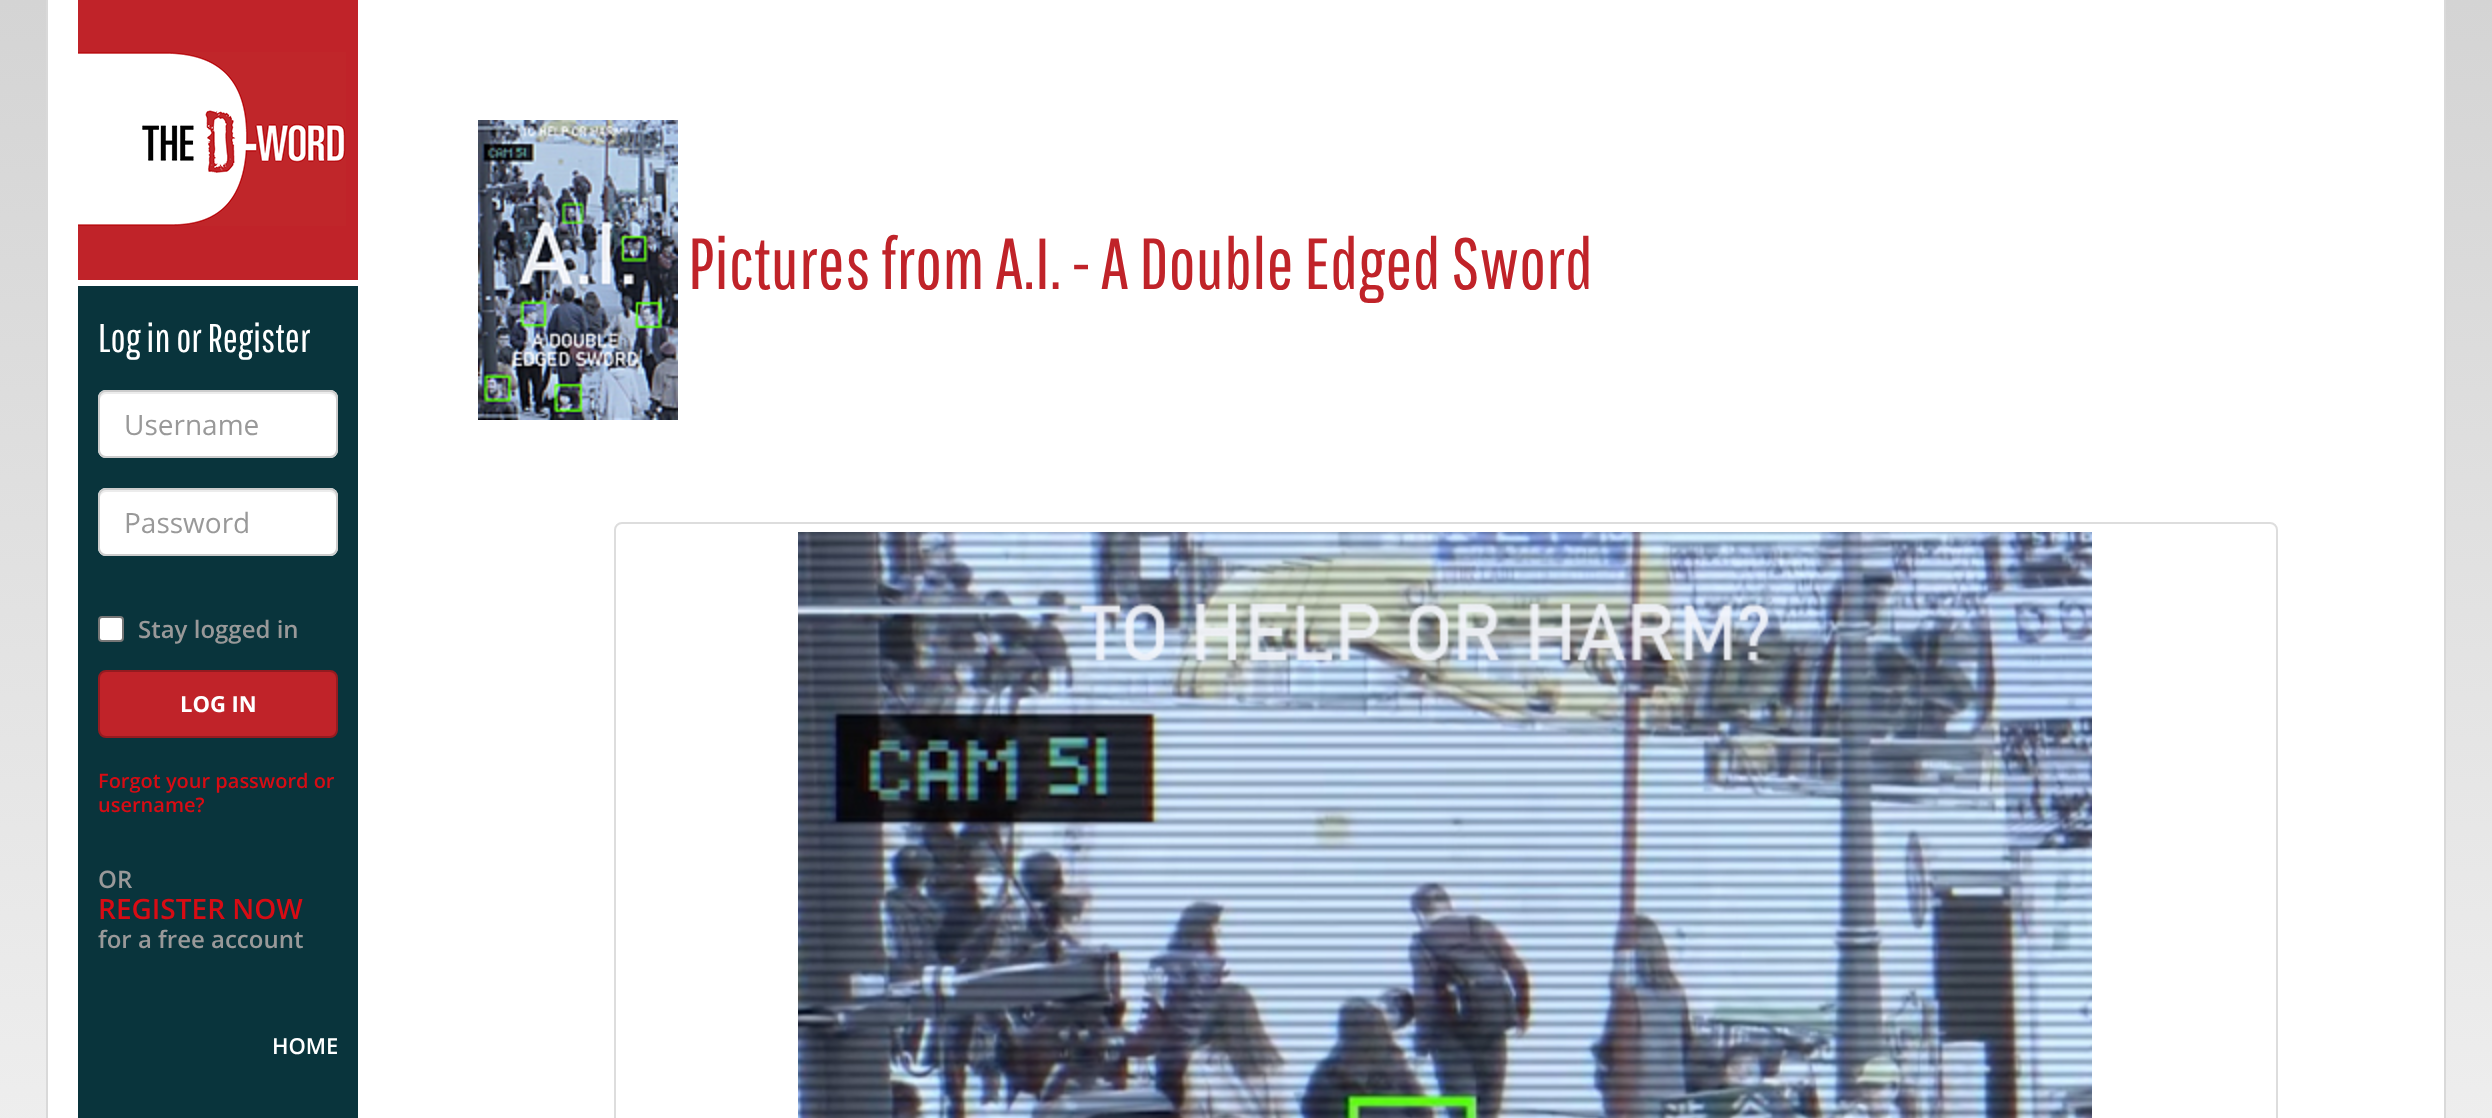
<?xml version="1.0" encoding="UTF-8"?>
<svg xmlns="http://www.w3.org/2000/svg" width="2492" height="1118">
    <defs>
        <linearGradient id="g1" gradientUnits="userSpaceOnUse" x1="1246" y1="0" x2="1246" y2="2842"><stop offset="0" stop-color="#D4D4D4"/><stop offset="0.66" stop-color="#FFFFFF"/></linearGradient>
    </defs>
    <rect width="100%" height="100%" fill="#FFFFFF"/>
    <rect x="0" y="0" width="2492" height="1118" fill="url(#g1)"/>
    <rect x="48" y="0" width="2396" height="1118" fill="#FFFFFF"/>
    <rect x="78" y="286" width="280" height="832" fill="#09343C"/>
    <rect x="2444" y="0" width="2" height="1118" fill="#D9D9D9"/>
    <rect x="46" y="0" width="2" height="1118" fill="#D9D9D9"/>
    <image x="478" y="120" width="200" height="300" href="img_01.png"/>
    <text x="688" y="289" font-family="Pathway Gothic One" font-size="72" fill="#C02329">Pictures from A.I. - A Double Edged Sword</text>
    <rect x="615" y="523" width="1662" height="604" rx="7" fill="none" stroke="#DDDDDD" stroke-width="2"/>
    <image x="798" y="532" width="1294" height="586" href="img_02.png"/>
    <rect x="78" y="0" width="280" height="280" fill="#C02329"/>
    <image x="78" y="52" width="268" height="174" href="img_03.png"/>
    <text x="98" y="352" font-family="Pathway Gothic One" font-size="40" fill="#FFFFFF">Log in or Register</text>
    <rect x="98" y="390" width="240" height="68" rx="8" fill="#FFFFFF"/>
    <path d="M 106 394 H 330 C 333 394 336 397 336 400 V 398 C 336 395 333 392 330 392 H 106 C 103 392 100 395 100 398 V 400 C 100 397 103 394 106 394 Z" fill="#ECECEC"/>
    <rect x="99" y="391" width="238" height="66" rx="7" fill="none" stroke="#CCCCCC" stroke-width="2"/>
    <text x="124" y="435" font-family="Open Sans" font-size="28" fill="#999999">Username</text>
    <rect x="98" y="488" width="240" height="68" rx="8" fill="#FFFFFF"/>
    <path d="M 106 492 H 330 C 333 492 336 495 336 498 V 496 C 336 493 333 490 330 490 H 106 C 103 490 100 493 100 496 V 498 C 100 495 103 492 106 492 Z" fill="#ECECEC"/>
    <rect x="99" y="489" width="238" height="66" rx="7" fill="none" stroke="#CCCCCC" stroke-width="2"/>
    <text x="124" y="533" font-family="Open Sans" font-size="28" fill="#999999">Password</text>
    <rect x="99" y="617" width="24" height="24" rx="3" fill="#FFFFFF" stroke="#767676" stroke-width="2"/>
    <text x="138" y="638" font-family="Open Sans" font-size="24" font-weight="600" fill="#999999">Stay logged in</text>
    <rect x="99" y="671" width="238" height="66" rx="7" fill="#C02329" stroke="#951B20" stroke-width="2"/>
    <text x="180" y="712" font-family="Open Sans" font-size="22" font-weight="700" fill="#FFFFFF">LOG IN</text>
    <text font-family="Open Sans" font-size="20" font-weight="600" fill="#D70C14">
        <tspan x="98" y="788">Forgot your password or</tspan>
        <tspan x="98" y="812">username?</tspan>
    </text>
    <text x="98" y="888" font-family="Open Sans" font-size="24" font-weight="600" fill="#999999">OR</text>
    <text x="98" y="919" font-family="Open Sans" font-size="28" font-weight="600" fill="#D70C14">REGISTER NOW</text>
    <text x="98" y="948" font-family="Open Sans" font-size="24" font-weight="600" fill="#999999">for a free account</text>
    <text x="272" y="1054" font-family="Open Sans" font-size="22" font-weight="600" fill="#FFFFFF">HOME</text>
</svg>
